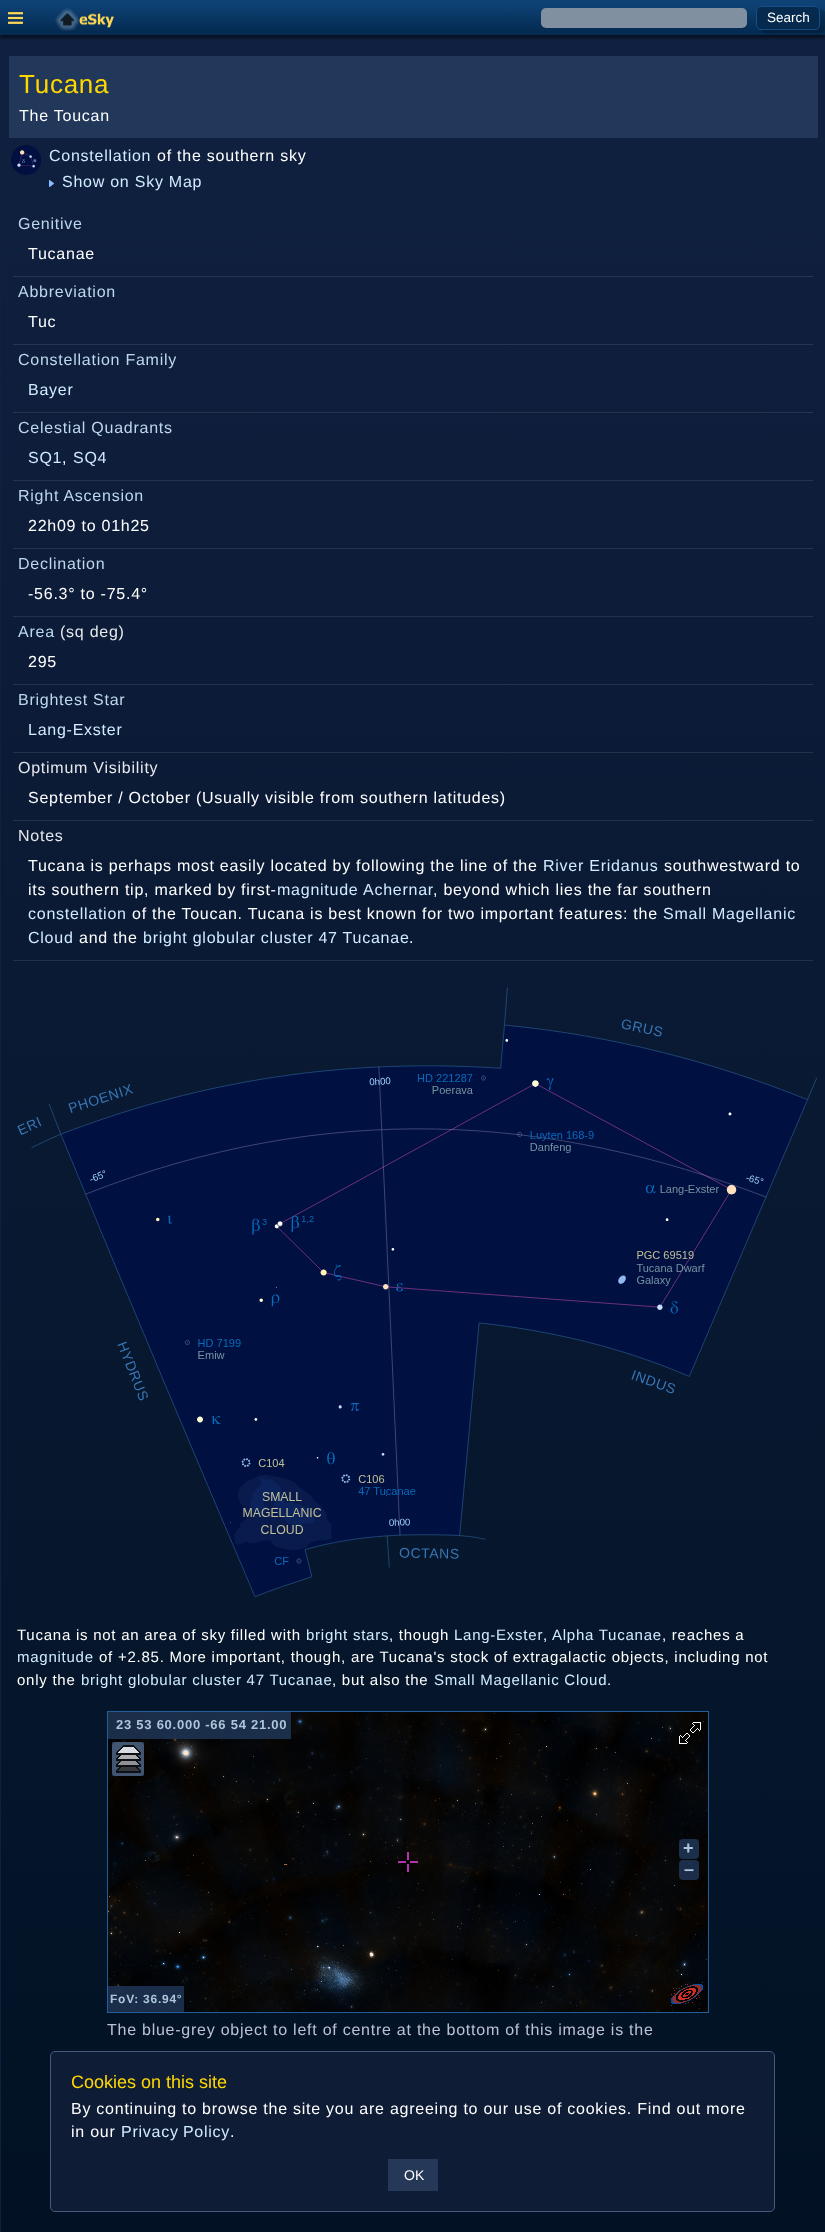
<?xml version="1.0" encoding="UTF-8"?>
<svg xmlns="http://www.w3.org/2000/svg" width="825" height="2232">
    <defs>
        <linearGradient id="g1" gradientUnits="userSpaceOnUse" x1="413" y1="33" x2="414" y2="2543"><stop offset="0" stop-color="#102040"/><stop offset="1" stop-color="#001020"/></linearGradient>
        <filter id="blur1" x="-50%" y="-200%" width="200%" height="500%"><feGaussianBlur stdDeviation="1.5"/></filter>
        <linearGradient id="g2" gradientUnits="userSpaceOnUse" x1="0" y1="0" x2="0" y2="35"><stop offset="0.1" stop-color="#0E4275"/><stop offset="0.9" stop-color="#042B52"/></linearGradient>
    </defs>
    <rect width="100%" height="100%" fill="#FFFFFF"/>
    <rect x="1" y="35" width="824" height="2197" fill="url(#g1)"/>
    <rect x="0" y="33" width="1" height="2199" fill="#102040"/>
    <rect x="0" y="3" width="825" height="35" fill="#000000" fill-opacity="0.5" filter="url(#blur1)"/>
    <rect x="0" y="0" width="825" height="35" fill="url(#g2)"/>
    <image x="8" y="12" width="15" height="12" href="img_01.png"/>
    <image x="55" y="8" width="59" height="23" href="img_02.png"/>
    <rect x="541" y="8" width="206" height="20" rx="5" fill="#8090A0"/>
    <path d="M 761 30 C 764 35 772 33 775 33 H 811 C 825 33 825 34 825 21 V 12 C 824 10 822 9 820 9 V 20 C 820 24 820 30 815 30 Z" fill="#000000" fill-opacity="0.2"/>
    <rect x="756.5" y="6.5" width="63" height="23" rx="4.5" fill="#052A4E" stroke="#144F88"/>
    <text x="767" y="22" font-family="Liberation Sans" font-size="13.5" fill="#FFFFFF">Search</text>
    <rect x="9" y="56" width="809" height="82" fill="#21385B"/>
    <text x="19" y="93" font-family="Liberation Sans" font-size="26" letter-spacing="0.75" fill="#FFD700">Tucana</text>
    <text x="19" y="121" font-family="Liberation Sans" font-size="16" letter-spacing="0.75" fill="#FFFFFF">The Toucan</text>
    <image x="11" y="145" width="30" height="30" href="img_03.png"/>
    <text x="49" y="161" font-family="Liberation Sans" font-size="16" letter-spacing="0.75" fill="#D0ECFF">Constellation</text>
    <text x="157" y="161" font-family="Liberation Sans" font-size="16" letter-spacing="0.75" fill="#FFFFFF">of the southern sky</text>
    <image x="49" y="180" width="5" height="7" href="img_04.png"/>
    <text x="62" y="187" font-family="Liberation Sans" font-size="16" letter-spacing="0.75" fill="#D0ECFF">Show on Sky Map</text>
    <text x="18" y="229" font-family="Liberation Sans" font-size="16" letter-spacing="0.75" fill="#BDD8EC">Genitive</text>
    <rect x="13" y="276" width="800" height="1" fill="#263550"/>
    <text x="28" y="259" font-family="Liberation Sans" font-size="16" letter-spacing="0.75" fill="#FFFFFF">Tucanae</text>
    <text x="18" y="297" font-family="Liberation Sans" font-size="16" letter-spacing="0.75" fill="#BDD8EC">Abbreviation</text>
    <rect x="13" y="344" width="800" height="1" fill="#263550"/>
    <text x="28" y="327" font-family="Liberation Sans" font-size="16" letter-spacing="0.75" fill="#FFFFFF">Tuc</text>
    <text x="18" y="365" font-family="Liberation Sans" font-size="16" letter-spacing="0.75" fill="#BDD8EC">Constellation Family</text>
    <rect x="13" y="412" width="800" height="1" fill="#26354F"/>
    <text x="28" y="395" font-family="Liberation Sans" font-size="16" letter-spacing="0.75" fill="#D0ECFF">Bayer</text>
    <text x="18" y="433" font-family="Liberation Sans" font-size="16" letter-spacing="0.75" fill="#BDD8EC">Celestial Quadrants</text>
    <rect x="13" y="480" width="800" height="1" fill="#25344E"/>
    <text x="28" y="463" font-family="Liberation Sans" font-size="16" letter-spacing="0.75" fill="#D0ECFF">SQ1</text>
    <text x="62" y="463" font-family="Liberation Sans" font-size="16" letter-spacing="0.75" fill="#FFFFFF">,</text>
    <text x="73" y="463" font-family="Liberation Sans" font-size="16" letter-spacing="0.75" fill="#D0ECFF">SQ4</text>
    <text x="18" y="501" font-family="Liberation Sans" font-size="16" letter-spacing="0.75" fill="#BDD8EC">Right Ascension</text>
    <rect x="13" y="548" width="800" height="1" fill="#25344D"/>
    <text x="28" y="531" font-family="Liberation Sans" font-size="16" letter-spacing="0.75" fill="#FFFFFF">22h09 to 01h25</text>
    <text x="18" y="569" font-family="Liberation Sans" font-size="16" letter-spacing="0.75" fill="#BDD8EC">Declination</text>
    <rect x="13" y="616" width="800" height="1" fill="#24334D"/>
    <text x="28" y="599" font-family="Liberation Sans" font-size="16" letter-spacing="0.75" fill="#FFFFFF">-56.3° to -75.4°</text>
    <text x="18" y="637" font-family="Liberation Sans" font-size="16" letter-spacing="0.75" fill="#BDD8EC">Area</text>
    <text x="60" y="637" font-family="Liberation Sans" font-size="16" letter-spacing="0.75" fill="#E7E8EB">(sq deg)</text>
    <rect x="13" y="684" width="800" height="1" fill="#24334C"/>
    <text x="28" y="667" font-family="Liberation Sans" font-size="16" letter-spacing="0.75" fill="#FFFFFF">295</text>
    <text x="18" y="705" font-family="Liberation Sans" font-size="16" letter-spacing="0.75" fill="#BDD8EC">Brightest Star</text>
    <rect x="13" y="752" width="800" height="1" fill="#23324B"/>
    <text x="28" y="735" font-family="Liberation Sans" font-size="16" letter-spacing="0.75" fill="#D0ECFF">Lang-Exster</text>
    <text x="18" y="773" font-family="Liberation Sans" font-size="16" letter-spacing="0.75" fill="#E7E8EB">Optimum Visibility</text>
    <rect x="13" y="820" width="800" height="1" fill="#23324A"/>
    <text x="28" y="803" font-family="Liberation Sans" font-size="16" letter-spacing="0.75" fill="#FFFFFF">September / October (Usually visible from southern latitudes)</text>
    <text x="18" y="841" font-family="Liberation Sans" font-size="16" letter-spacing="0.75" fill="#E7E8EB">Notes</text>
    <rect x="13" y="960" width="800" height="1" fill="#233148"/>
    <text x="28" y="871" font-family="Liberation Sans" font-size="16" letter-spacing="0.75" fill="#FFFFFF">Tucana is perhaps most easily located by following the line of the</text>
    <text x="543" y="871" font-family="Liberation Sans" font-size="16" letter-spacing="0.75" fill="#D0ECFF">River Eridanus</text>
    <text x="664" y="871" font-family="Liberation Sans" font-size="16" letter-spacing="0.75" fill="#FFFFFF">southwestward to</text>
    <text x="28" y="895" font-family="Liberation Sans" font-size="16" letter-spacing="0.75" fill="#FFFFFF">its southern tip, marked by first-</text>
    <text x="277" y="895" font-family="Liberation Sans" font-size="16" letter-spacing="0.75" fill="#D0ECFF">magnitude</text>
    <text x="363" y="895" font-family="Liberation Sans" font-size="16" letter-spacing="0.75" fill="#D0ECFF">Achernar</text>
    <text x="433" y="895" font-family="Liberation Sans" font-size="16" letter-spacing="0.75" fill="#FFFFFF">, beyond which lies the far southern</text>
    <text x="28" y="919" font-family="Liberation Sans" font-size="16" letter-spacing="0.75" fill="#D0ECFF">constellation</text>
    <text x="132" y="919" font-family="Liberation Sans" font-size="16" letter-spacing="0.75" fill="#FFFFFF">of the Toucan. Tucana is best known for two important features: the</text>
    <text x="663" y="919" font-family="Liberation Sans" font-size="16" letter-spacing="0.75" fill="#D0ECFF">Small Magellanic</text>
    <text x="28" y="943" font-family="Liberation Sans" font-size="16" letter-spacing="0.75" fill="#D0ECFF">Cloud</text>
    <text x="79" y="943" font-family="Liberation Sans" font-size="16" letter-spacing="0.75" fill="#FFFFFF">and the</text>
    <text x="143" y="943" font-family="Liberation Sans" font-size="16" letter-spacing="0.75" fill="#D0ECFF">bright globular cluster 47 Tucanae</text>
    <text x="409" y="943" font-family="Liberation Sans" font-size="16" letter-spacing="0.75" fill="#FFFFFF">.</text>
    <image x="17" y="987" width="800" height="610" href="img_05.png"/>
    <text x="17" y="1640" font-family="Liberation Sans" font-size="15" letter-spacing="0.75" fill="#FFFFFF">Tucana is not an area of sky filled with</text>
    <text x="306" y="1640" font-family="Liberation Sans" font-size="15" letter-spacing="0.75" fill="#D0ECFF">bright stars</text>
    <text x="389" y="1640" font-family="Liberation Sans" font-size="15" letter-spacing="0.75" fill="#FFFFFF">, though</text>
    <text x="454" y="1640" font-family="Liberation Sans" font-size="15" letter-spacing="0.75" fill="#D0ECFF">Lang-Exster</text>
    <text x="543" y="1640" font-family="Liberation Sans" font-size="15" letter-spacing="0.75" fill="#FFFFFF">,</text>
    <text x="552" y="1640" font-family="Liberation Sans" font-size="15" letter-spacing="0.75" fill="#D0ECFF">Alpha Tucanae</text>
    <text x="662" y="1640" font-family="Liberation Sans" font-size="15" letter-spacing="0.75" fill="#FFFFFF">, reaches a</text>
    <text x="17" y="1662" font-family="Liberation Sans" font-size="15" letter-spacing="0.75" fill="#D0ECFF">magnitude</text>
    <text x="99" y="1662" font-family="Liberation Sans" font-size="15" letter-spacing="0.75" fill="#FFFFFF">of +2.85. More important, though, are Tucana's stock of extragalactic objects, including not</text>
    <text x="17" y="1685" font-family="Liberation Sans" font-size="15" letter-spacing="0.75" fill="#FFFFFF">only the</text>
    <text x="81" y="1685" font-family="Liberation Sans" font-size="15" letter-spacing="0.75" fill="#D0ECFF">bright globular cluster 47 Tucanae</text>
    <text x="332" y="1685" font-family="Liberation Sans" font-size="15" letter-spacing="0.75" fill="#FFFFFF">, but also the</text>
    <text x="434" y="1685" font-family="Liberation Sans" font-size="15" letter-spacing="0.75" fill="#D0ECFF">Small Magellanic Cloud</text>
    <text x="607" y="1685" font-family="Liberation Sans" font-size="15" letter-spacing="0.75" fill="#FFFFFF">.</text>
    <rect x="107.5" y="1711.5" width="601" height="301" fill="none" stroke="#245E98"/>
    <image x="108" y="1712" width="600" height="300" href="img_06.png"/>
    <rect x="108" y="1712" width="183" height="27" fill="#21385B" fill-opacity="0.8"/>
    <text x="116" y="1729" font-family="Liberation Sans" font-size="13" font-weight="700" letter-spacing="0.75" fill="#ACC6DB">23 53 60.000 -66 54 21.00</text>
    <image x="679" y="1722" width="22" height="22" href="img_07.png"/>
    <rect x="112" y="1742" width="32" height="34" rx="4" fill="#FAFAFA" fill-opacity="0.8"/>
    <rect x="112" y="1742" width="32" height="34" fill="#21385B" fill-opacity="0.8"/>
    <image x="116" y="1745" width="25" height="28" href="img_08.png"/>
    <image x="398" y="1852" width="20" height="20" href="img_09.png"/>
    <rect x="679" y="1839" width="20" height="20" rx="4" fill="#21385B" fill-opacity="0.8"/>
    <text x="683" y="1854" font-family="Liberation Sans" font-size="18" font-weight="700" letter-spacing="0.75" fill="#ACC6DB">+</text>
    <rect x="679" y="1860" width="20" height="20" rx="4" fill="#21385B" fill-opacity="0.8"/>
    <text x="684" y="1875" font-family="Liberation Sans" font-size="18" font-weight="700" letter-spacing="0.75" fill="#ACC6DB">–</text>
    <rect x="108" y="1986" width="76" height="26" fill="#21385B" fill-opacity="0.8"/>
    <text x="110" y="2003" font-family="Liberation Sans" font-size="12" font-weight="700" letter-spacing="0.75" fill="#ACC6DB">FoV: 36.94°</text>
    <image x="671" y="1982" width="32" height="24" href="img_10.png"/>
    <text x="107" y="2035" font-family="Liberation Sans" font-size="16" letter-spacing="0.75" fill="#BDC0D4">The blue-grey object to left of centre at the bottom of this image is the</text>
    <rect x="50.5" y="2051.5" width="724" height="160" rx="4.5" fill="#0F1C36" stroke="#48597F"/>
    <text x="71" y="2088" font-family="Liberation Sans" font-size="18" fill="#FFD700">Cookies on this site</text>
    <text font-family="Liberation Sans" font-size="16" letter-spacing="0.75" fill="#FFFFFF">
        <tspan x="71" y="2114">By continuing to browse the site you are agreeing to our use of cookies. Find out more</tspan>
        <tspan x="71" y="2137">in our</tspan>
    </text>
    <text x="121" y="2137" word-spacing="-1" font-family="Liberation Sans" font-size="16" letter-spacing="0.75" fill="#D0ECFF">Privacy Policy</text>
    <text x="230" y="2137" font-family="Liberation Sans" font-size="16" letter-spacing="0.75" fill="#FFFFFF">.</text>
    <rect x="388" y="2159" width="50" height="32" fill="#263858"/>
    <text x="404" y="2180" font-family="Liberation Sans" font-size="14" fill="#FFFFFF">OK</text>
</svg>
